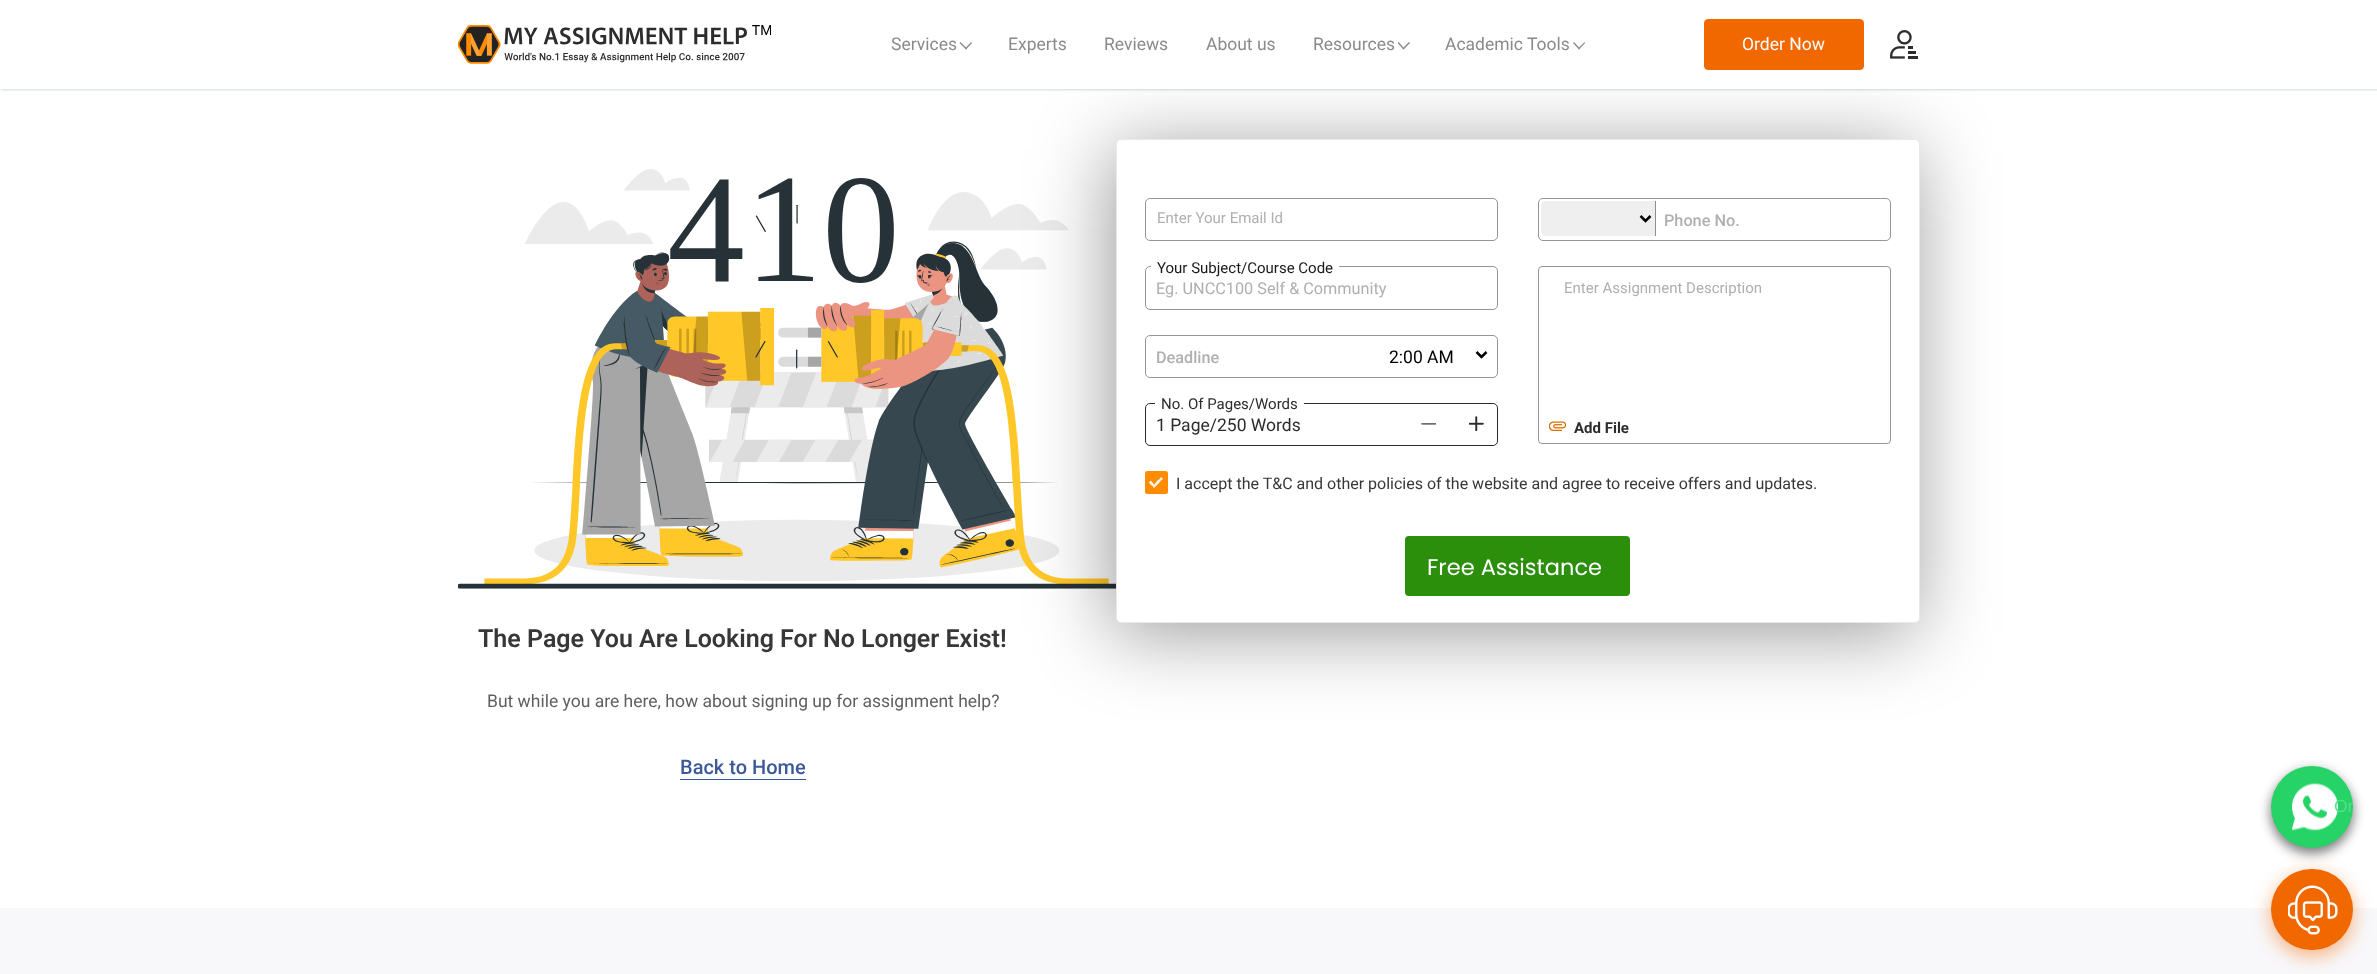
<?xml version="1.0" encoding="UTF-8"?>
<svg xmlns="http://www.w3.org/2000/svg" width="2377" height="974">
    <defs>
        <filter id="blur1" x="-50%" y="-200%" width="200%" height="500%"><feGaussianBlur stdDeviation="1"/></filter>
        <clipPath id="clip1"><rect x="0" y="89" width="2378" height="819"/></clipPath>
        <filter id="blur2" x="-50%" y="-200%" width="200%" height="500%"><feGaussianBlur stdDeviation="39.5"/></filter>
        <filter id="blur3" x="-50%" y="-200%" width="200%" height="500%"><feGaussianBlur stdDeviation="6"/></filter>
        <filter id="blur4" x="-50%" y="-200%" width="200%" height="500%"><feGaussianBlur stdDeviation="9.5"/></filter>
    </defs>
    <rect width="100%" height="100%" fill="#FFFFFF"/>
    <rect x="1" y="1" width="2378" height="89" fill="#B1BDD6" fill-opacity="0.6" filter="url(#blur1)"/>
    <rect x="0" y="0" width="2377" height="89" fill="#FFFFFF"/>
    <image x="458" y="25" width="313" height="39" href="img_01.png"/>
    <text x="891" y="50" font-family="Roboto" font-size="17.5" fill="#8A8A8A">Services</text>
    <path d="M 971 42 L 972 43 L 966 49.5 L 965 48.5 Z" fill="#8A8A8A"/>
    <path d="M 960.5 42 L 967 48.5 L 966 49.5 L 959.5 43 Z" fill="#8A8A8A"/>
    <text x="1008" y="50" font-family="Roboto" font-size="17.5" fill="#8A8A8A">Experts</text>
    <text x="1104" y="50" font-family="Roboto" font-size="17.5" fill="#8A8A8A">Reviews</text>
    <text x="1206" y="50" font-family="Roboto" font-size="17.5" fill="#8A8A8A">About us</text>
    <text x="1313" y="50" font-family="Roboto" font-size="17.5" fill="#8A8A8A">Resources</text>
    <path d="M 1409 42 L 1410 43 L 1403.5 49.5 L 1402.5 48.5 Z" fill="#8A8A8A"/>
    <path d="M 1398.5 42 L 1404.5 48.5 L 1403.5 49.5 L 1397.5 43 Z" fill="#8A8A8A"/>
    <text x="1445" y="50" font-family="Roboto" font-size="17.5" fill="#8A8A8A">Academic Tools</text>
    <path d="M 1584.5 42 L 1585 43 L 1579 49.5 L 1578 48.5 Z" fill="#8A8A8A"/>
    <path d="M 1574 42 L 1580 48.5 L 1579 49.5 L 1573 43 Z" fill="#8A8A8A"/>
    <rect x="1704.5" y="19.5" width="159" height="50" rx="3.5" fill="#F16700" stroke="#F16700"/>
    <text x="1742" y="50" font-family="Roboto" font-size="17.5" fill="#FFFFFF">Order Now</text>
    <image x="1890" y="30" width="28" height="29" href="img_02.png"/>
    <image x="458" y="169" width="658" height="420" href="img_06.png"/>
    <g clip-path="url(#clip1)">
        <rect x="1111" y="149" width="804" height="484" rx="5" fill="#000000" fill-opacity="0.4" filter="url(#blur2)"/>
    </g>
    <rect x="1116.5" y="139.5" width="803" height="483" rx="4.5" fill="#FFFFFF" stroke="#E9E9E9"/>
    <rect x="1145.5" y="198.5" width="352" height="42" rx="4.5" fill="none" stroke="#969696"/>
    <text x="1157" y="223" font-family="Roboto" font-size="15" fill="#AFAFAF">Enter Your Email Id</text>
    <rect x="1145.5" y="266.5" width="352" height="43" rx="4.5" fill="none" stroke="#969696"/>
    <rect x="1151" y="266" width="188" height="1" fill="#FFFFFF"/>
    <text x="1157" y="273" font-family="Roboto" font-size="15" fill="#1A1A1A">Your Subject/Course Code</text>
    <text x="1156" y="294" font-family="Roboto" font-size="16.25" fill="#AFAFAF">Eg. UNCC100 Self &amp; Community</text>
    <rect x="1145.5" y="335.5" width="352" height="42" rx="4.5" fill="none" stroke="#969696"/>
    <text x="1156" y="363" font-family="Roboto" font-size="16.25" font-weight="500" fill="#AFAFAF">Deadline</text>
    <path d="M 1476.5 352 L 1481.5 357 L 1486.5 352" fill="none" stroke="#000000" stroke-width="2.5"/>
    <text x="1389" y="363" font-family="Roboto" font-size="17.5" fill="#000000">2:00 AM</text>
    <rect x="1145.5" y="403.5" width="352" height="42" rx="4.5" fill="none" stroke="#2C2C2C"/>
    <rect x="1155" y="403" width="149" height="1" fill="#FFFFFF"/>
    <text x="1161" y="409" font-family="Roboto" font-size="15" fill="#2C2C2C">No. Of Pages/Words</text>
    <text x="1156" y="431" font-family="Roboto" font-size="17.5" fill="#2C2C2C">1 Page/250 Words</text>
    <image x="1421" y="423" width="15" height="2" href="img_03.png"/>
    <image x="1469" y="416" width="15" height="15" href="img_04.png"/>
    <rect x="1538.5" y="198.5" width="352" height="42" rx="4.5" fill="none" stroke="#969696"/>
    <path d="M 1546 201 H 1656 V 236 H 1546 C 1543 236 1541 234 1541 231 V 206 C 1541 203 1543 201 1546 201 Z" fill="#EFEFEF"/>
    <rect x="1655" y="201" width="1" height="35" fill="#8E8E8E"/>
    <path d="M 1640.5 216 L 1645.5 221 L 1650.5 216" fill="none" stroke="#000000" stroke-width="2.5"/>
    <text x="1664" y="226" font-family="Roboto" font-size="16.25" font-weight="500" fill="#AFAFAF">Phone No.</text>
    <rect x="1538.5" y="266.5" width="352" height="177" rx="3.5" fill="none" stroke="#969696"/>
    <text x="1564" y="293" font-family="Roboto" font-size="15" fill="#AFAFAF">Enter Assignment Description</text>
    <image x="1549" y="421" width="17" height="10" href="img_05.png"/>
    <text x="1574" y="433" font-family="Roboto" font-size="15" font-weight="700" fill="#2C2C2C">Add File</text>
    <rect x="1145" y="471" width="23" height="23" rx="2.5" fill="#FF8B00"/>
    <text x="1176" y="489" font-family="Roboto" font-size="16" fill="#373737">I accept the T&amp;C and other policies of the website and agree to receive offers and updates.</text>
    <path d="M 1161 477 L 1163 479 L 1161 480.5 L 1159.5 479 Z" fill="#FFFFFF"/>
    <path d="M 1159.5 479 L 1161 480.5 L 1159.5 482.5 L 1157.5 480.5 Z" fill="#FFFFFF"/>
    <path d="M 1157.5 480.5 L 1159.5 482.5 L 1157.5 484.5 L 1156 482.5 Z" fill="#FFFFFF"/>
    <path d="M 1156 482.5 L 1157.5 484.5 L 1156 486 L 1154 484.5 Z" fill="#FFFFFF"/>
    <path d="M 1154 484.5 L 1156 486 L 1154 488 L 1152.5 486 Z" fill="#FFFFFF"/>
    <path d="M 1152.5 482.5 L 1154 484.5 L 1152.5 486 L 1150.5 484.5 Z" fill="#FFFFFF"/>
    <path d="M 1150.5 480.5 L 1152.5 482.5 L 1150.5 484.5 L 1149 482.5 Z" fill="#FFFFFF"/>
    <rect x="1405" y="536" width="225" height="60" rx="4" fill="#2B8F0C"/>
    <text x="1427" y="575" font-family="Poppins" font-size="22.5" fill="#FFFFFF">Free Assistance</text>
    <text x="478" y="647" font-family="Roboto" font-size="25" font-weight="600" fill="#373737">The Page You Are Looking For No Longer Exist!</text>
    <text x="487" y="707" font-family="Roboto" font-size="17.5" fill="#5F5F5F">But while you are here, how about signing up for assignment help?</text>
    <text x="680" y="774" font-family="Roboto" font-size="20" font-weight="500" fill="#3B5999">Back to Home</text>
    <rect x="680" y="779" width="126" height="1" fill="#3B5999"/>
    <rect x="2271" y="771" width="82" height="82" rx="41" fill="#000000" fill-opacity="0.3" filter="url(#blur3)"/>
    <rect x="0" y="908" width="2377" height="66" fill="#F8F8FB"/>
    <rect x="2271" y="875" width="82" height="81" rx="40.5" fill="#F16700" fill-opacity="0.5" filter="url(#blur4)"/>
    <rect x="2271" y="869" width="82" height="81" rx="40.5" fill="#F16700"/>
    <rect x="2271" y="771" width="82" height="82" rx="41" fill="#000000" fill-opacity="0.3" filter="url(#blur3)"/>
    <circle cx="2312" cy="807" r="41" fill="#25D366"/>
    <image x="2292" y="783" width="46" height="48" href="img_07.png"/>
    <text x="2334" y="812" font-family="Liberation Sans" font-size="17.5" fill="#58DD8A">Or</text>
    <image x="2288" y="885" width="50" height="50" href="img_08.png"/>
</svg>
